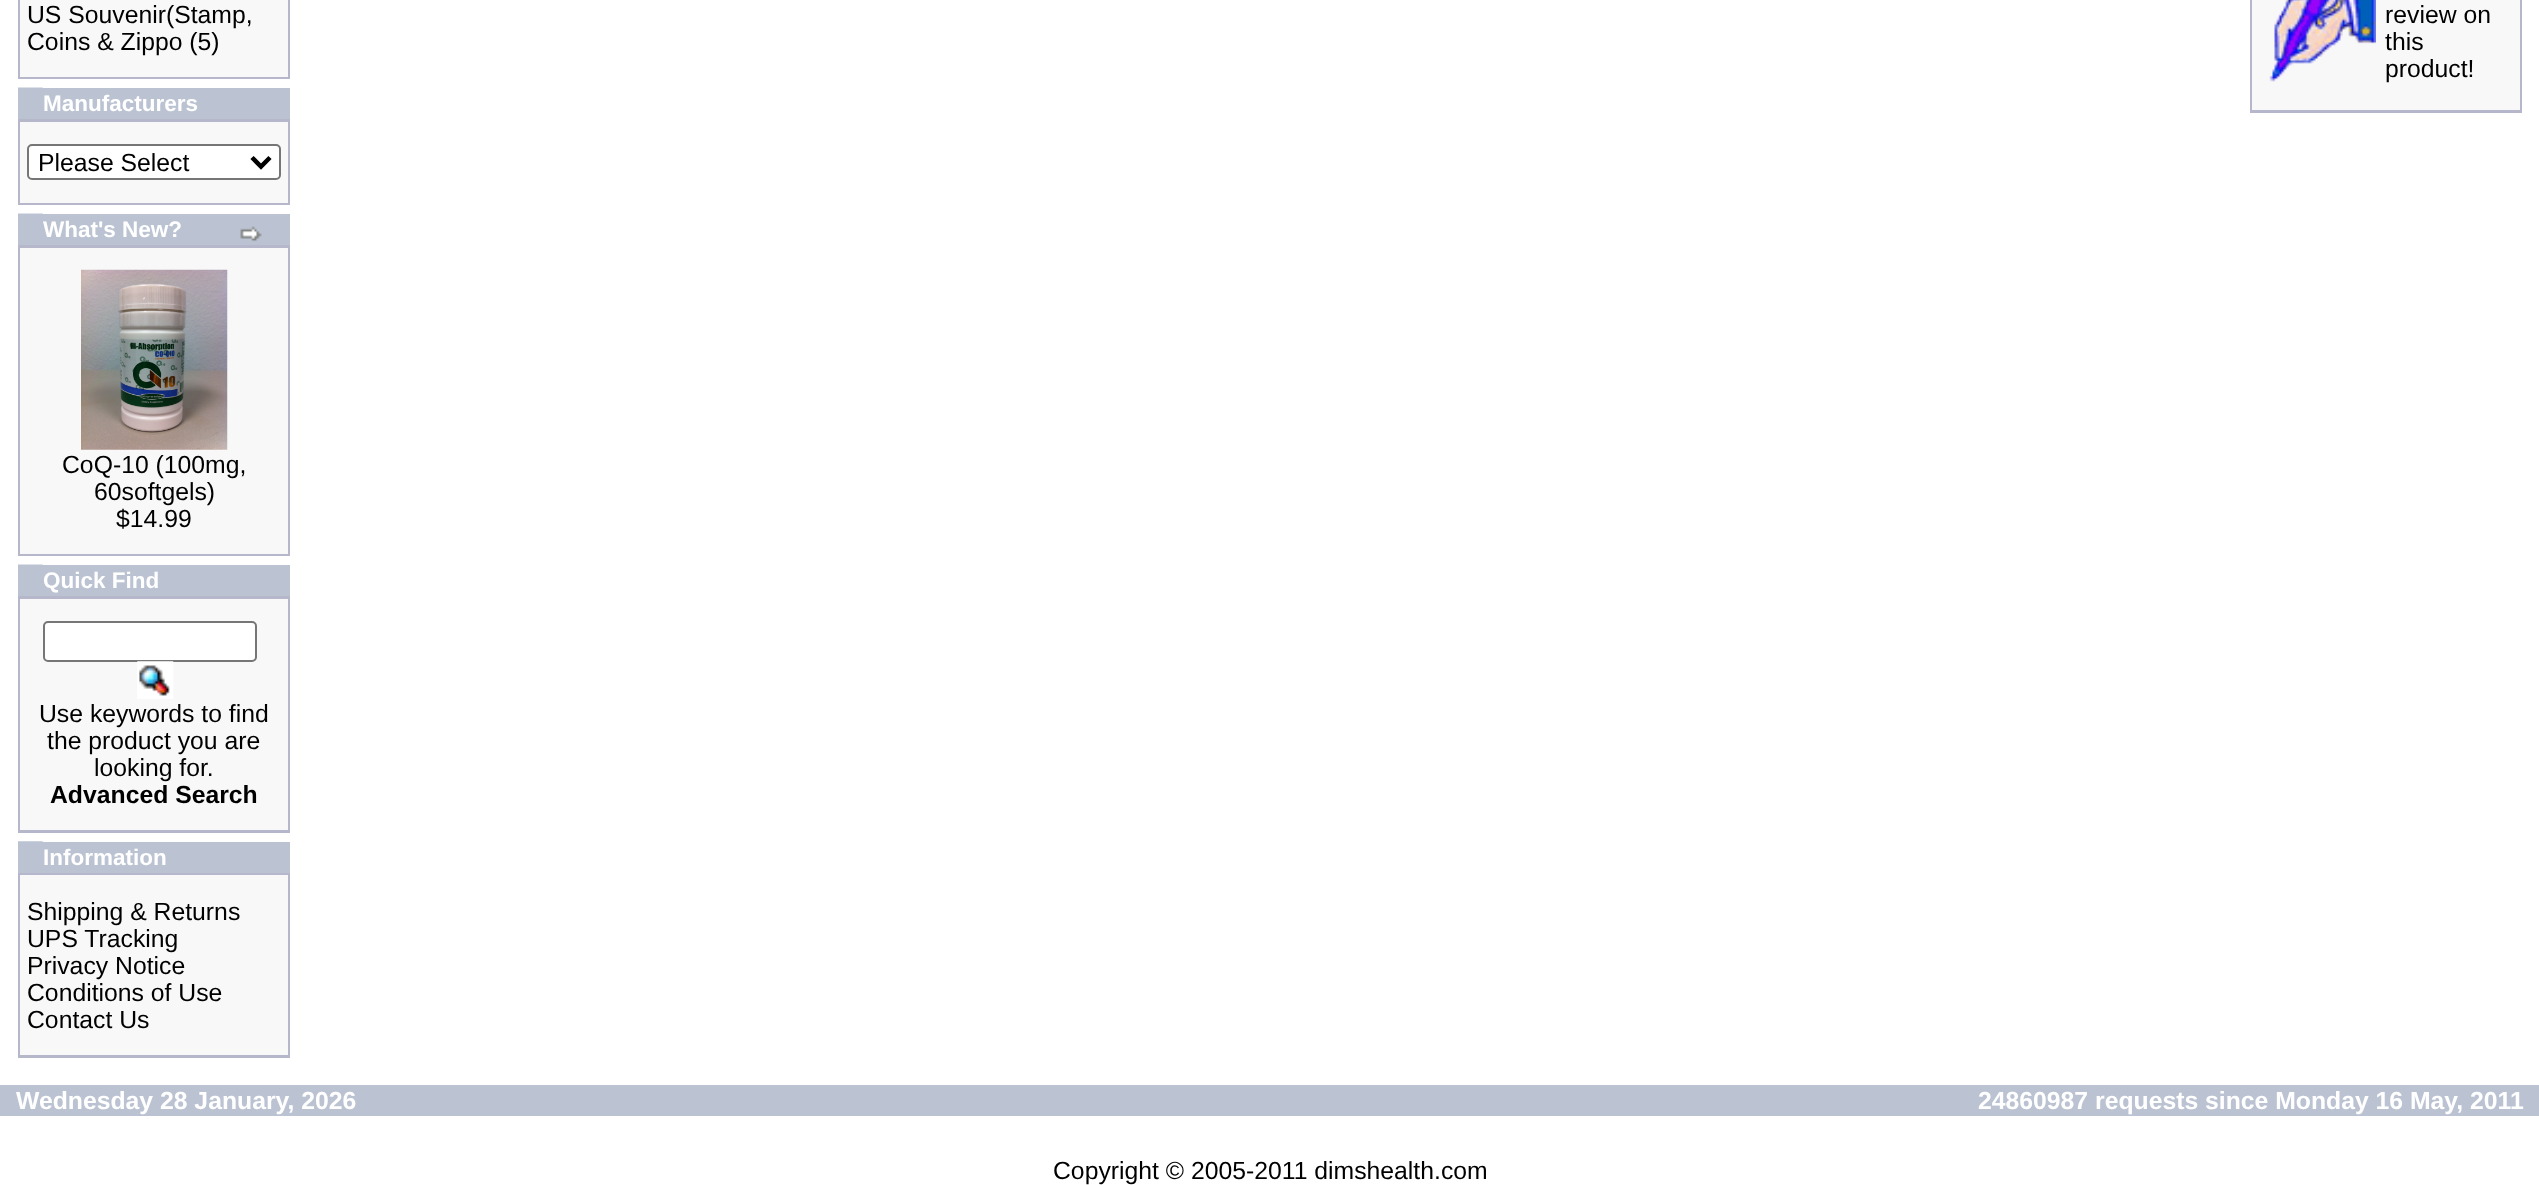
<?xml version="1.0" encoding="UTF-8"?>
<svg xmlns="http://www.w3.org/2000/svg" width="2539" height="1185">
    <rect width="100%" height="100%" fill="#FFFFFF"/>
    <rect x="18" y="0" width="272" height="79" fill="#B6B7CB"/>
    <rect x="20" y="0" width="268" height="77" fill="#F8F8F9"/>
    <text font-family="Liberation Sans" font-size="24.75" fill="#000000">
        <tspan x="27" y="23">US Souvenir(Stamp,</tspan>
        <tspan x="27" y="50">Coins &amp; Zippo (5)</tspan>
    </text>
    <rect x="18" y="88" width="272" height="31" fill="#BBC3D3"/>
    <image x="18" y="87" width="25" height="1" href="img_01.png"/>
    <text x="43" y="111" font-family="Liberation Sans" font-size="22.5" font-weight="700" fill="#FFFFFF">Manufacturers</text>
    <rect x="18" y="119" width="272" height="86" fill="#B6B7CB"/>
    <rect x="20" y="122" width="268" height="81" fill="#F8F8F9"/>
    <rect x="28" y="145" width="252" height="34" rx="4" fill="#FFFFFF" stroke="#767676" stroke-width="2"/>
    <path d="M 252 157.5 L 261 166.5 L 270 157.5" fill="none" stroke="#000000" stroke-width="4.5"/>
    <text x="38" y="171" font-family="Liberation Sans" font-size="24.75" fill="#000000">Please Select</text>
    <rect x="18" y="214" width="272" height="31" fill="#BBC3D3"/>
    <image x="18" y="213" width="25" height="1" href="img_01.png"/>
    <text x="43" y="237" font-family="Liberation Sans" font-size="22.5" font-weight="700" fill="#FFFFFF">What's New?</text>
    <image x="240" y="226" width="22" height="16" href="img_02.png"/>
    <rect x="18" y="245" width="272" height="311" fill="#B6B7CB"/>
    <rect x="20" y="248" width="268" height="306" fill="#F8F8F9"/>
    <image x="81" y="269" width="147" height="181" href="img_03.png"/>
    <text x="62" y="473" font-family="Liberation Sans" font-size="24.75" fill="#000000">CoQ-10 (100mg,</text>
    <text x="94" y="500" font-family="Liberation Sans" font-size="24.75" fill="#000000">60softgels)</text>
    <text x="116" y="527" font-family="Liberation Sans" font-size="24.75" fill="#000000">$14.99</text>
    <rect x="18" y="565" width="272" height="31" fill="#BBC3D3"/>
    <image x="18" y="564" width="25" height="1" href="img_01.png"/>
    <text x="43" y="588" font-family="Liberation Sans" font-size="22.5" font-weight="700" fill="#FFFFFF">Quick Find</text>
    <rect x="18" y="596" width="272" height="237" fill="#B6B7CB"/>
    <rect x="20" y="599" width="268" height="231" fill="#F8F8F9"/>
    <rect x="44" y="622" width="212" height="39" rx="4" fill="#FFFFFF" stroke="#767676" stroke-width="2"/>
    <image x="137" y="661" width="37" height="38" href="img_04.png"/>
    <text x="39" y="722" font-family="Liberation Sans" font-size="24.75" fill="#000000">Use keywords to find</text>
    <text x="47" y="749" font-family="Liberation Sans" font-size="24.75" fill="#000000">the product you are</text>
    <text x="94" y="776" font-family="Liberation Sans" font-size="24.75" fill="#000000">looking for.</text>
    <text x="50" y="803" font-family="Liberation Sans" font-size="24.75" font-weight="700" fill="#000000">Advanced Search</text>
    <rect x="18" y="842" width="272" height="31" fill="#BBC3D3"/>
    <image x="18" y="841" width="25" height="1" href="img_05.png"/>
    <text x="43" y="865" font-family="Liberation Sans" font-size="22.5" font-weight="700" fill="#FFFFFF">Information</text>
    <rect x="18" y="873" width="272" height="185" fill="#B6B7CB"/>
    <rect x="20" y="875" width="268" height="180" fill="#F8F8F9"/>
    <text font-family="Liberation Sans" font-size="24.75" fill="#000000">
        <tspan x="27" y="920">Shipping &amp; Returns</tspan>
        <tspan x="27" y="947">UPS Tracking</tspan>
        <tspan x="27" y="974">Privacy Notice</tspan>
        <tspan x="27" y="1001">Conditions of Use</tspan>
        <tspan x="27" y="1028">Contact Us</tspan>
    </text>
    <rect x="2250" y="0" width="272" height="113" fill="#B6B7CB"/>
    <rect x="2252" y="0" width="268" height="110" fill="#F8F8F9"/>
    <image x="2269" y="0" width="107" height="82" href="img_06.png"/>
    <text font-family="Liberation Sans" font-size="24.75" fill="#000000">
        <tspan x="2385" y="23">review on</tspan>
        <tspan x="2385" y="50">this</tspan>
        <tspan x="2385" y="77">product!</tspan>
    </text>
    <rect x="0" y="1085" width="2539" height="31" fill="#BBC3D3"/>
    <text x="16" y="1109" font-family="Liberation Sans" font-size="24.75" font-weight="700" fill="#FFFFFF">Wednesday 28 January, 2026</text>
    <text x="1978" y="1109" font-family="Liberation Sans" font-size="24.75" font-weight="700" fill="#FFFFFF">24860987 requests since Monday 16 May, 2011</text>
    <text x="1053" y="1179" font-family="Liberation Sans" font-size="24.75" fill="#000000">Copyright © 2005-2011 dimshealth.com</text>
</svg>
